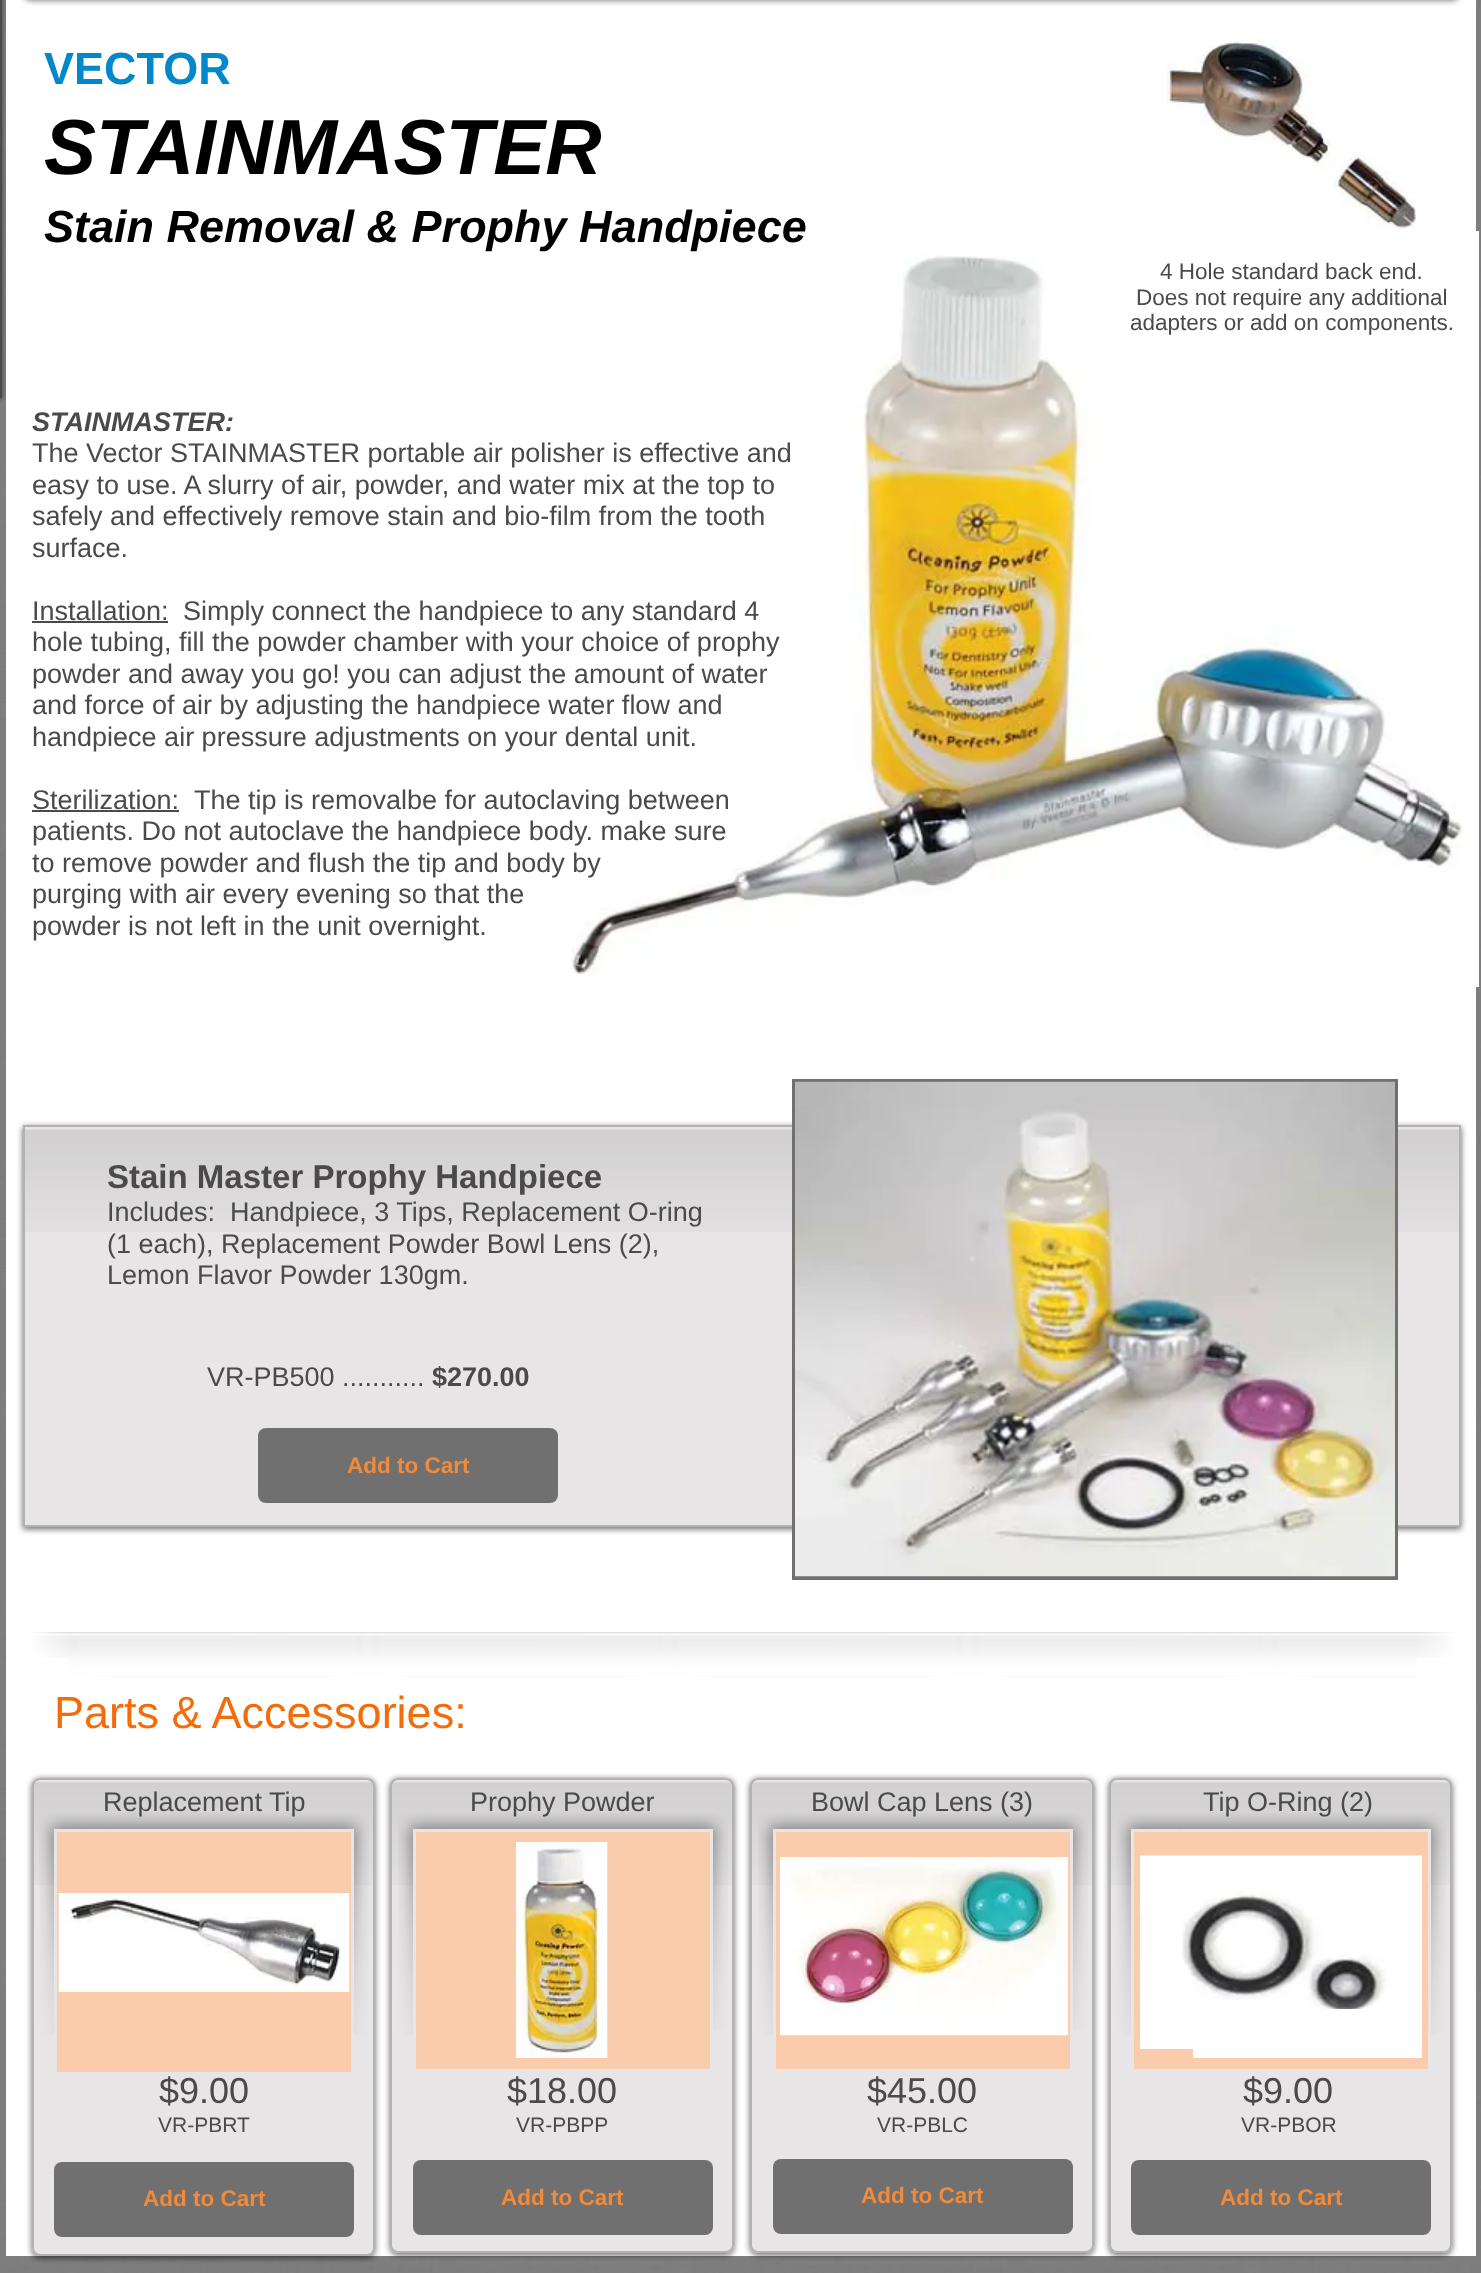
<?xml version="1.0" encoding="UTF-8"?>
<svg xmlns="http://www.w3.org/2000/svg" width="1481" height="2273">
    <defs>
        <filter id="blur1" x="-50%" y="-200%" width="200%" height="500%"><feGaussianBlur stdDeviation="2"/></filter>
        <filter id="blur2" x="-50%" y="-200%" width="200%" height="500%"><feGaussianBlur stdDeviation="3"/></filter>
    </defs>
    <rect width="100%" height="100%" fill="#FFFFFF"/>
    <image x="0" y="0" width="1481" height="2273" href="img_01.png"/>
    <rect x="-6" y="-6" width="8" height="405" fill="#000000" fill-opacity="0.5" filter="url(#blur1)"/>
    <rect x="-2.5" y="-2.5" width="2" height="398" fill="none" stroke="#4A4A4A" stroke-width="5"/>
    <rect x="6" y="0" width="1470" height="2256" fill="#FFFFFF"/>
    <rect x="23" y="-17" width="1437" height="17" rx="8" fill="#000000" fill-opacity="0.6" filter="url(#blur2)"/>
    <text x="44" y="84" font-family="Liberation Sans" font-size="45" font-weight="700" fill="#0088CB">VECTOR</text>
    <image x="1167" y="37" width="249" height="192" href="img_02.png"/>
    <text x="44" y="174" font-family="Liberation Sans" font-size="78" font-weight="700" font-style="italic" fill="#000000">STAINMASTER</text>
    <image x="571" y="231" width="908" height="756" href="img_03.png"/>
    <text x="44" y="242" font-family="Liberation Sans" font-size="45" font-weight="700" font-style="italic" fill="#000000">Stain Removal &amp; Prophy Handpiece</text>
    <text x="1160" y="279" font-family="Liberation Sans" font-size="22.5" fill="#4A4A4A">4 Hole standard back end.</text>
    <text x="1136" y="305" font-family="Liberation Sans" font-size="22.5" fill="#4A4A4A">Does not require any additional</text>
    <text x="1130" y="330" font-family="Liberation Sans" font-size="22.5" fill="#4A4A4A">adapters or add on components.</text>
    <text x="32" y="431" font-family="Liberation Sans" font-size="27" font-weight="700" font-style="italic" fill="#4A4A4A">STAINMASTER:</text>
    <text font-family="Liberation Sans" font-size="27" fill="#4A4A4A">
        <tspan x="32" y="462">The Vector STAINMASTER portable air polisher is effective and</tspan>
        <tspan x="32" y="494">easy to use. A slurry of air, powder, and water mix at the top to</tspan>
        <tspan x="32" y="525">safely and effectively remove stain and bio-film from the tooth</tspan>
        <tspan x="32" y="557">surface.</tspan>
    </text>
    <text x="32" y="620" font-family="Liberation Sans" font-size="27" fill="#4A4A4A">Installation:</text>
    <rect x="32" y="621" width="136" height="2" fill="#4A4A4A"/>
    <text x="183" y="620" font-family="Liberation Sans" font-size="27" fill="#4A4A4A">Simply connect the handpiece to any standard 4</text>
    <text font-family="Liberation Sans" font-size="27" fill="#4A4A4A">
        <tspan x="32" y="651">hole tubing, fill the powder chamber with your choice of prophy</tspan>
        <tspan x="32" y="683">powder and away you go! you can adjust the amount of water</tspan>
        <tspan x="32" y="714">and force of air by adjusting the handpiece water flow and</tspan>
        <tspan x="32" y="746">handpiece air pressure adjustments on your dental unit.</tspan>
    </text>
    <text x="32" y="809" font-family="Liberation Sans" font-size="27" fill="#4A4A4A">Sterilization:</text>
    <rect x="32" y="810" width="147" height="2" fill="#4A4A4A"/>
    <text x="194" y="809" font-family="Liberation Sans" font-size="27" fill="#4A4A4A">The tip is removalbe for autoclaving between</text>
    <text font-family="Liberation Sans" font-size="27" fill="#4A4A4A">
        <tspan x="32" y="840">patients. Do not autoclave the handpiece body. make sure</tspan>
        <tspan x="32" y="872">to remove powder and flush the tip and body by</tspan>
        <tspan x="32" y="903">purging with air every evening so that the</tspan>
        <tspan x="32" y="935">powder is not left in the unit overnight.</tspan>
    </text>
    <rect x="23" y="1127" width="1438" height="402" fill="#000000" fill-opacity="0.6" filter="url(#blur2)"/>
    <rect x="25" y="1127" width="1434" height="398" fill="#E7E5E5"/>
    <image x="22" y="1129" width="1437" height="103" href="img_04.png"/>
    <rect x="24" y="1126" width="1436" height="400" fill="none" stroke="#B2B2B2" stroke-width="2"/>
    <text x="107" y="1188" font-family="Liberation Sans" font-size="33" font-weight="700" fill="#4A4A4A">Stain Master Prophy Handpiece</text>
    <text font-family="Liberation Sans" font-size="27" fill="#4A4A4A" xml:space="preserve"><tspan x="107" y="1221">Includes:  Handpiece, 3 Tips, Replacement O-ring</tspan><tspan x="107" y="1253">(1 each), Replacement Powder Bowl Lens (2),</tspan><tspan x="107" y="1284">Lemon Flavor Powder 130gm.</tspan></text>
    <text x="207" y="1386" font-family="Liberation Sans" font-size="27" fill="#4A4A4A">VR-PB500 ...........</text>
    <text x="432" y="1386" font-family="Liberation Sans" font-size="27" font-weight="700" fill="#4A4A4A">$270.00</text>
    <rect x="258" y="1428" width="300" height="75" rx="8" fill="#717070"/>
    <text x="347" y="1473" font-family="Liberation Sans" font-size="22.5" font-weight="700" fill="#F18B3A">Add to Cart</text>
    <rect x="792" y="1079" width="606" height="501" fill="#717070"/>
    <image x="795" y="1081" width="600" height="496" href="img_05.png"/>
    <image x="67" y="1632" width="1351" height="45" href="img_07.png"/>
    <image x="32" y="1632" width="36" height="26" href="img_06.png"/>
    <image x="1417" y="1632" width="36" height="26" href="img_08.png"/>
    <text x="54" y="1728" font-family="Liberation Sans" font-size="45" fill="#F46B09">Parts &amp; Accessories:</text>
    <rect x="32" y="1779" width="343" height="479" rx="8" fill="#000000" fill-opacity="0.6" filter="url(#blur2)"/>
    <rect x="32" y="1778" width="343" height="478" rx="8" fill="#E7E5E5"/>
    <image x="32" y="1782" width="343" height="103" href="img_09.png"/>
    <rect x="33" y="1779" width="341" height="476" rx="7" fill="none" stroke="#B2B2B2" stroke-width="2"/>
    <text x="103" y="1811" font-family="Liberation Sans" font-size="27" fill="#4A4A4A">Replacement Tip</text>
    <text x="159" y="2103" font-family="Liberation Sans" font-size="36" fill="#4A4A4A">$9.00</text>
    <text x="158" y="2132" font-family="Liberation Sans" font-size="21" fill="#4A4A4A">VR-PBRT</text>
    <image x="39" y="1813" width="68" height="222" href="img_10.png"/>
    <image x="106" y="1813" width="196" height="16" href="img_11.png"/>
    <image x="301" y="1813" width="68" height="222" href="img_12.png"/>
    <rect x="55.5" y="1830.5" width="297" height="243" fill="#FBCCAB" stroke="#E7E5E5" stroke-width="3"/>
    <image x="58" y="1893" width="292" height="99" href="img_13.png"/>
    <rect x="54" y="2162" width="300" height="75" rx="8" fill="#717070"/>
    <text x="143" y="2206" font-family="Liberation Sans" font-size="22.5" font-weight="700" fill="#F18B3A">Add to Cart</text>
    <rect x="390" y="1779" width="344" height="476" rx="8" fill="#000000" fill-opacity="0.6" filter="url(#blur2)"/>
    <rect x="390" y="1778" width="344" height="475" rx="8" fill="#E7E5E5"/>
    <image x="390" y="1782" width="343" height="103" href="img_14.png"/>
    <rect x="391" y="1779" width="342" height="473" rx="7" fill="none" stroke="#B2B2B2" stroke-width="2"/>
    <text x="470" y="1811" font-family="Liberation Sans" font-size="27" fill="#4A4A4A">Prophy Powder</text>
    <text x="507" y="2103" font-family="Liberation Sans" font-size="36" fill="#4A4A4A">$18.00</text>
    <text x="516" y="2132" font-family="Liberation Sans" font-size="21" fill="#4A4A4A">VR-PBPP</text>
    <image x="398" y="1813" width="67" height="222" href="img_15.png"/>
    <image x="465" y="1813" width="195" height="16" href="img_16.png"/>
    <image x="660" y="1813" width="68" height="217" href="img_17.png"/>
    <rect x="414.5" y="1830.5" width="297" height="240" fill="#FBCCAB" stroke="#E7E5E5" stroke-width="3"/>
    <image x="516" y="1842" width="92" height="216" href="img_18.png"/>
    <rect x="413" y="2160" width="300" height="75" rx="8" fill="#717070"/>
    <text x="501" y="2205" font-family="Liberation Sans" font-size="22.5" font-weight="700" fill="#F18B3A">Add to Cart</text>
    <rect x="750" y="1779" width="344" height="476" rx="8" fill="#000000" fill-opacity="0.6" filter="url(#blur2)"/>
    <rect x="750" y="1778" width="344" height="475" rx="8" fill="#E7E5E5"/>
    <image x="750" y="1782" width="343" height="103" href="img_14.png"/>
    <rect x="751" y="1779" width="342" height="473" rx="7" fill="none" stroke="#B2B2B2" stroke-width="2"/>
    <text x="811" y="1811" font-family="Liberation Sans" font-size="27" fill="#4A4A4A">Bowl Cap Lens (3)</text>
    <text x="867" y="2103" font-family="Liberation Sans" font-size="36" fill="#4A4A4A">$45.00</text>
    <text x="877" y="2132" font-family="Liberation Sans" font-size="21" fill="#4A4A4A">VR-PBLC</text>
    <image x="758" y="1813" width="67" height="222" href="img_19.png"/>
    <image x="825" y="1813" width="195" height="16" href="img_20.png"/>
    <image x="1020" y="1813" width="68" height="217" href="img_21.png"/>
    <rect x="774.5" y="1830.5" width="297" height="240" fill="#FBCCAB" stroke="#E7E5E5" stroke-width="3"/>
    <image x="780" y="1857" width="288" height="179" href="img_22.png"/>
    <rect x="773" y="2159" width="300" height="75" rx="8" fill="#717070"/>
    <text x="861" y="2203" font-family="Liberation Sans" font-size="22.5" font-weight="700" fill="#F18B3A">Add to Cart</text>
    <rect x="1109" y="1779" width="343" height="476" rx="8" fill="#000000" fill-opacity="0.6" filter="url(#blur2)"/>
    <rect x="1109" y="1778" width="343" height="475" rx="8" fill="#E7E5E5"/>
    <image x="1109" y="1782" width="343" height="103" href="img_09.png"/>
    <rect x="1110" y="1779" width="341" height="473" rx="7" fill="none" stroke="#B2B2B2" stroke-width="2"/>
    <text x="1203" y="1811" font-family="Liberation Sans" font-size="27" fill="#4A4A4A">Tip O-Ring (2)</text>
    <text x="1243" y="2103" font-family="Liberation Sans" font-size="36" fill="#4A4A4A">$9.00</text>
    <text x="1241" y="2132" font-family="Liberation Sans" font-size="21" fill="#4A4A4A">VR-PBOR</text>
    <image x="1116" y="1813" width="68" height="222" href="img_10.png"/>
    <image x="1183" y="1813" width="196" height="16" href="img_23.png"/>
    <image x="1378" y="1813" width="68" height="222" href="img_24.png"/>
    <rect x="1132.5" y="1830.5" width="297" height="240" fill="#FBCCAB" stroke="#E7E5E5" stroke-width="3"/>
    <image x="1140" y="1855" width="282" height="194" href="img_25.png"/>
    <rect x="1193" y="2009" width="229" height="49" fill="#FFFFFF"/>
    <rect x="1131" y="2160" width="300" height="75" rx="8" fill="#717070"/>
    <text x="1220" y="2205" font-family="Liberation Sans" font-size="22.5" font-weight="700" fill="#F18B3A">Add to Cart</text>
</svg>
